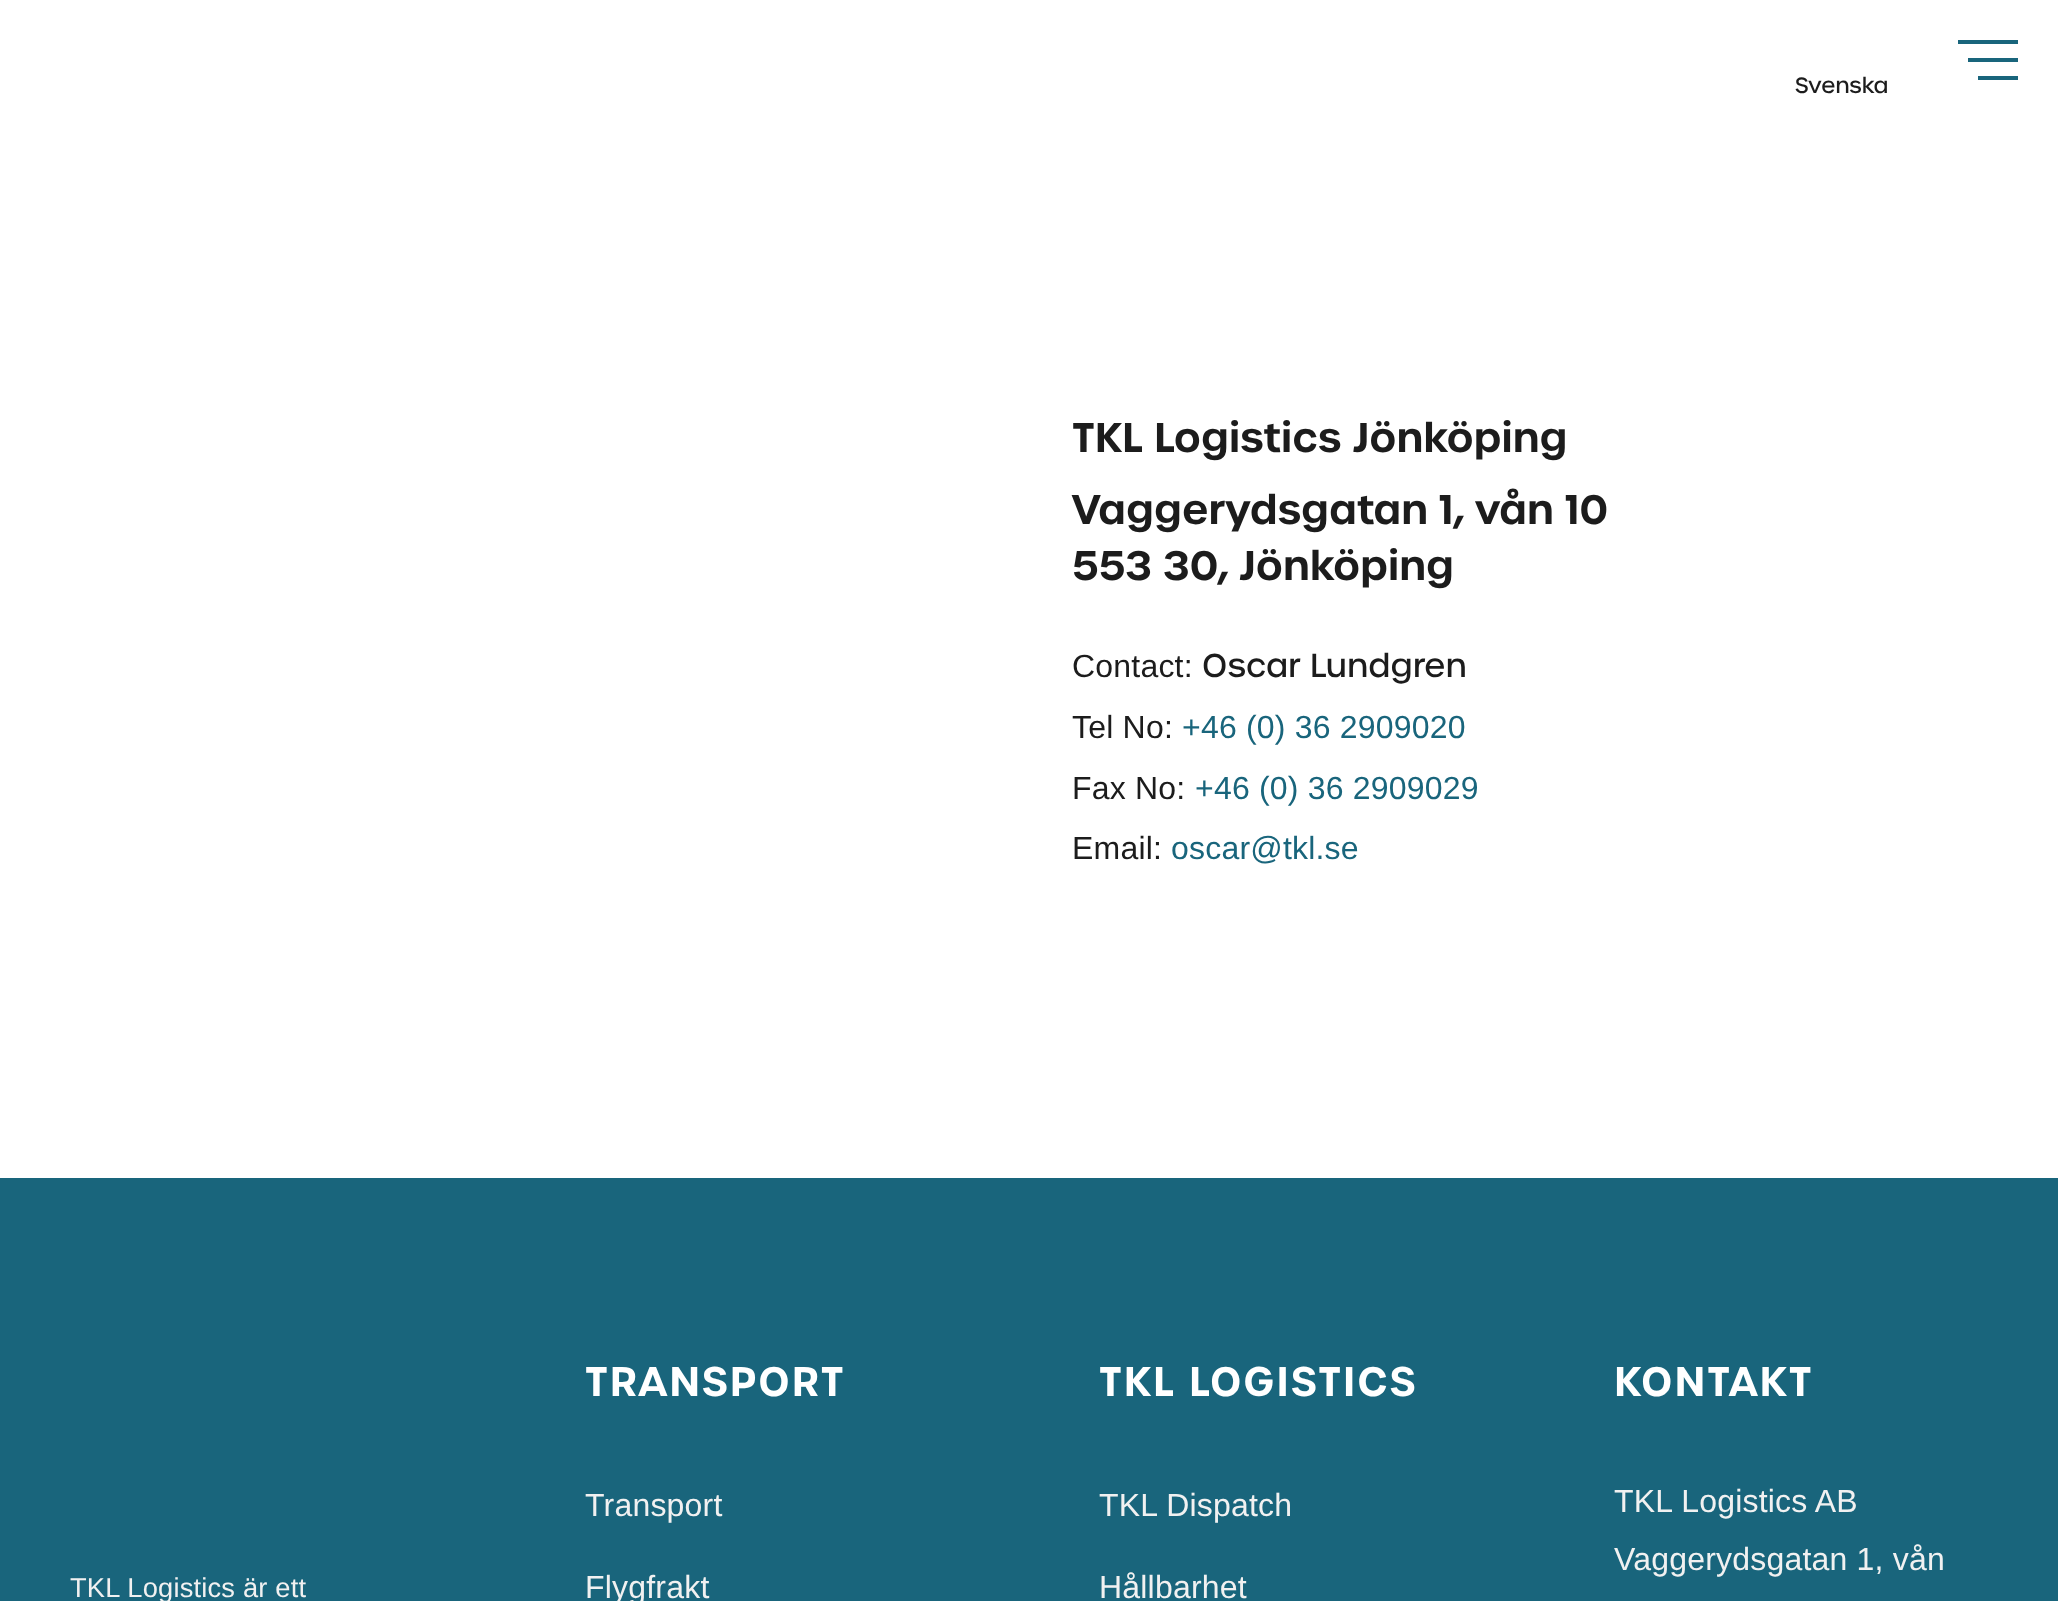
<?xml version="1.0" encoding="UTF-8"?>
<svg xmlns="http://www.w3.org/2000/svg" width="2058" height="1601">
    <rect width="100%" height="100%" fill="#FFFFFF"/>
    <rect x="1958" y="40" width="60" height="4" fill="#19657C"/>
    <rect x="1968" y="58" width="50" height="4" fill="#19657C"/>
    <rect x="1978" y="76" width="40" height="4" fill="#19657C"/>
    <text x="1795" y="93" font-family="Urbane" font-size="21.5" font-weight="500" fill="#1C1C1C">Svenska</text>
    <text font-family="Urbane" font-size="40" font-weight="600" fill="#1C1C1C">
        <tspan x="1072" y="452">TKL Logistics Jönköping</tspan>
        <tspan x="1072" y="524">Vaggerydsgatan 1, vån 10</tspan>
        <tspan x="1072" y="580">553 30, Jönköping</tspan>
    </text>
    <text x="1072" y="677" font-family="Liberation Sans" font-size="32" letter-spacing="0.2" fill="#1C1C1C">Contact:</text>
    <text x="1202" y="677" font-family="Urbane" font-size="32" font-weight="500" letter-spacing="0.2" fill="#1C1C1C">Oscar Lundgren</text>
    <text x="1072" y="738" font-family="Liberation Sans" font-size="32" letter-spacing="0.2" fill="#1C1C1C">Tel No:</text>
    <text x="1182" y="738" font-family="Liberation Sans" font-size="32" letter-spacing="0.2" fill="#19657C">+46 (0) 36 2909020</text>
    <text x="1072" y="799" font-family="Liberation Sans" font-size="32" letter-spacing="0.2" fill="#1C1C1C">Fax No:</text>
    <text x="1195" y="799" font-family="Liberation Sans" font-size="32" letter-spacing="0.2" fill="#19657C">+46 (0) 36 2909029</text>
    <text x="1072" y="859" font-family="Liberation Sans" font-size="32" letter-spacing="0.2" fill="#1C1C1C">Email:</text>
    <text x="1171" y="859" font-family="Liberation Sans" font-size="32" letter-spacing="0.2" fill="#19657C">oscar@tkl.se</text>
    <rect x="0" y="1178" width="2058" height="423" fill="#19657C"/>
    <text x="585" y="1396" font-family="Urbane" font-size="40" font-weight="600" letter-spacing="2" fill="#FFFFFF">TRANSPORT</text>
    <text x="585" y="1516" font-family="Liberation Sans" font-size="32" letter-spacing="0.2" fill="#F1F1F1">Transport</text>
    <text x="585" y="1598" font-family="Liberation Sans" font-size="32" letter-spacing="0.2" fill="#F1F1F1">Flygfrakt</text>
    <text x="1099" y="1396" font-family="Urbane" font-size="40" font-weight="600" letter-spacing="2" fill="#FFFFFF">TKL LOGISTICS</text>
    <text x="1099" y="1516" font-family="Liberation Sans" font-size="32" letter-spacing="0.2" fill="#F1F1F1">TKL Dispatch</text>
    <text x="1099" y="1598" font-family="Liberation Sans" font-size="32" letter-spacing="0.2" fill="#F1F1F1">Hållbarhet</text>
    <text x="1614" y="1396" font-family="Urbane" font-size="40" font-weight="600" letter-spacing="2" fill="#FFFFFF">KONTAKT</text>
    <text font-family="Liberation Sans" font-size="32" letter-spacing="0.2" fill="#F1F1F1">
        <tspan x="1614" y="1512">TKL Logistics AB</tspan>
        <tspan x="1614" y="1570">Vaggerydsgatan 1, vån</tspan>
    </text>
    <text x="70" y="1597" font-family="Liberation Sans" font-size="27.25" letter-spacing="0.2" fill="#F1F1F1">TKL Logistics är ett</text>
</svg>
